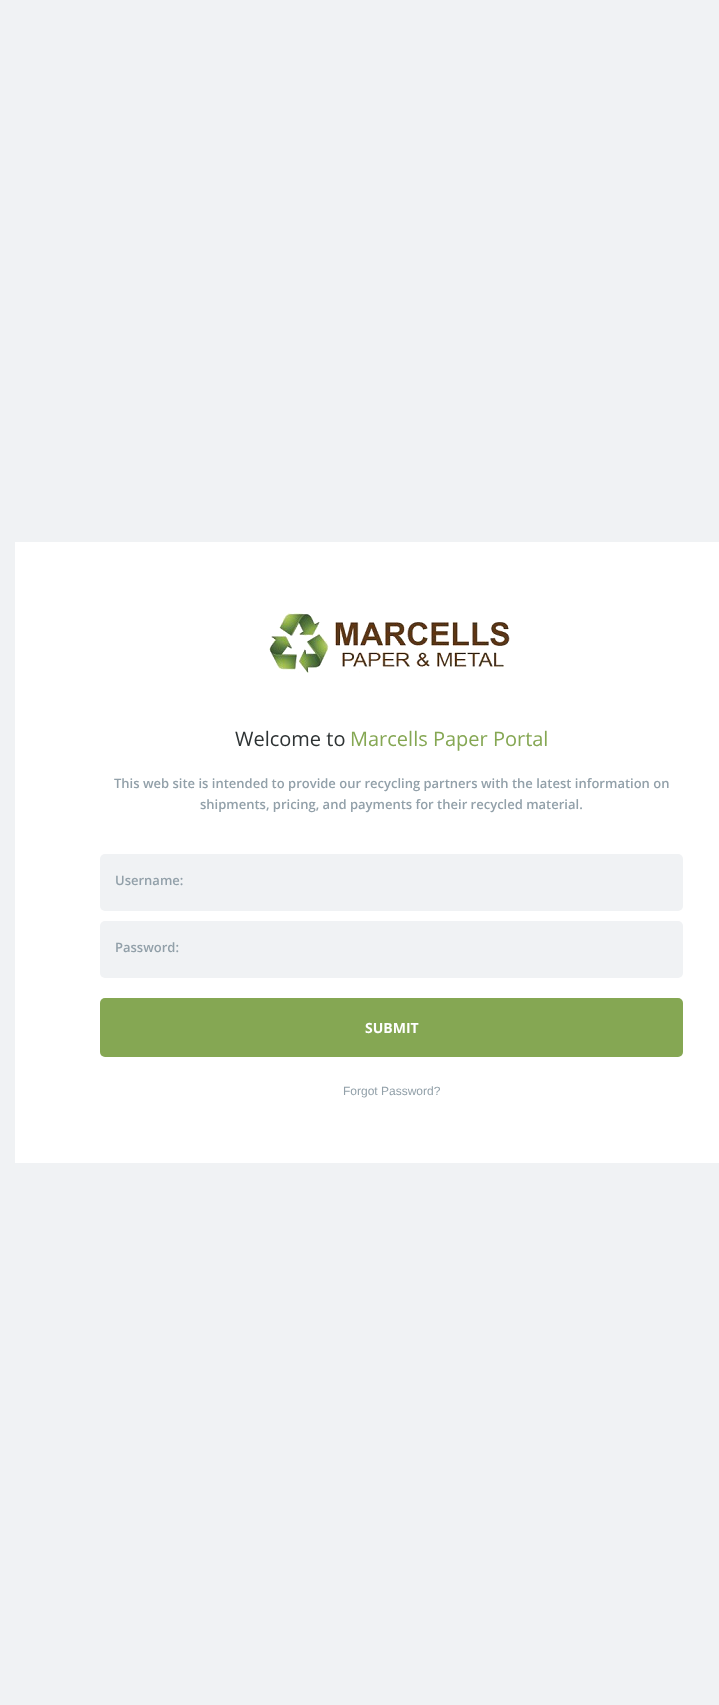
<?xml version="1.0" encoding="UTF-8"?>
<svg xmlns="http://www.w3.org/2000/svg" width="719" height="1705">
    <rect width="100%" height="100%" fill="#F0F2F4"/>
    <rect x="15" y="542" width="704" height="621" fill="#FFFFFF"/>
    <image x="269" y="613" width="241" height="60" href="img_01.png"/>
    <text x="235" y="746" font-family="Open Sans" font-size="20" fill="#2E3334">Welcome to</text>
    <text x="350" y="746" font-family="Open Sans" font-size="20" fill="#85A753">Marcells Paper Portal</text>
    <text x="114" y="788" font-family="Open Sans" font-size="13" font-weight="600" fill="#92A0A9">This web site is intended to provide our recycling partners with the latest information on</text>
    <text x="200" y="809" font-family="Open Sans" font-size="13" font-weight="600" fill="#92A0A9">shipments, pricing, and payments for their recycled material.</text>
    <rect x="100" y="854" width="583" height="57" rx="5" fill="#F0F2F4"/>
    <text x="115" y="885" font-family="Open Sans" font-size="13" font-weight="600" fill="#92A0A9">Username:</text>
    <rect x="100" y="921" width="583" height="57" rx="5" fill="#F0F2F4"/>
    <text x="115" y="952" font-family="Open Sans" font-size="13" font-weight="600" fill="#92A0A9">Password:</text>
    <rect x="100" y="998" width="583" height="59" rx="5" fill="#85A753"/>
    <text x="365" y="1033" font-family="Open Sans" font-size="14" font-weight="700" fill="#FFFFFF">SUBMIT</text>
    <text x="343" y="1095" font-family="Liberation Sans" font-size="12" fill="#92A0A9">Forgot Password?</text>
</svg>
